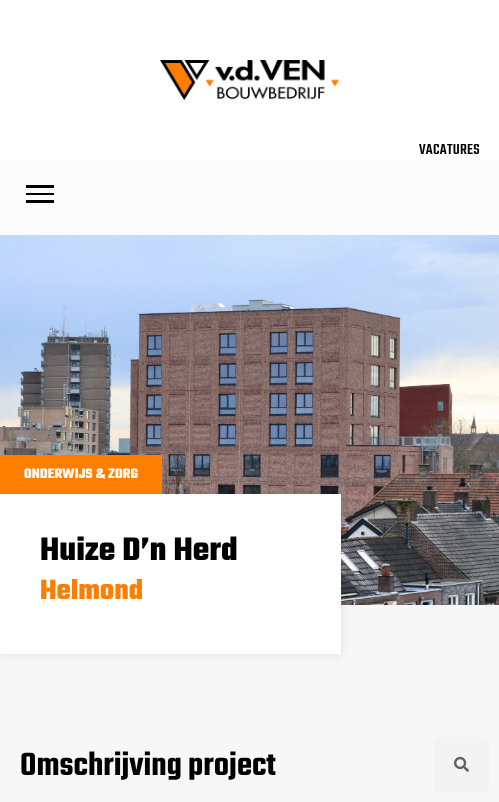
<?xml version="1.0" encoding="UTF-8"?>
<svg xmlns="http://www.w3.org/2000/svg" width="499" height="802">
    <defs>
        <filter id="blur1" x="-50%" y="-200%" width="200%" height="500%"><feGaussianBlur stdDeviation="5"/></filter>
    </defs>
    <rect width="100%" height="100%" fill="#FCFCFC"/>
    <rect x="0" y="0" width="499" height="161" fill="#FFFFFF"/>
    <image x="160" y="60" width="179" height="41" href="img_01.png"/>
    <text x="419" y="154" font-family="Teko" font-size="16" font-weight="500" letter-spacing="0.25" fill="#000000">VACATURES</text>
    <rect x="26" y="185" width="28" height="3" fill="#000000"/>
    <rect x="26" y="193" width="28" height="2" fill="#000000"/>
    <rect x="26" y="200" width="28" height="3" fill="#000000"/>
    <image x="0" y="235" width="499" height="370" href="img_02.png"/>
    <rect x="0" y="605" width="499" height="59" fill="#F7F7F7"/>
    <rect x="0" y="494" width="341" height="160" fill="#000000" fill-opacity="0.1" filter="url(#blur1)"/>
    <rect x="0" y="455" width="162" height="39" fill="#FE7E00"/>
    <text x="24" y="478" font-family="Teko" font-size="15" font-weight="700" fill="#FFFFFF">ONDERWIJS &amp; ZORG</text>
    <rect x="0" y="494" width="341" height="160" fill="#FFFFFF"/>
    <text x="40" y="560" font-family="Teko" font-size="35" font-weight="700" fill="#000000">Huize D’n Herd</text>
    <text x="40" y="599" font-family="Teko" font-size="30" font-weight="700" fill="#FF7E00">Helmond</text>
    <rect x="0" y="664" width="499" height="138" fill="#F7F7F7"/>
    <text x="20" y="775" font-family="Teko" font-size="35" font-weight="600" fill="#000000">Omschrijving project</text>
    <rect x="434" y="737" width="55" height="55" rx="5" fill="#F3F3F3"/>
    <image x="454" y="756" width="15" height="16" href="img_03.png"/>
</svg>
